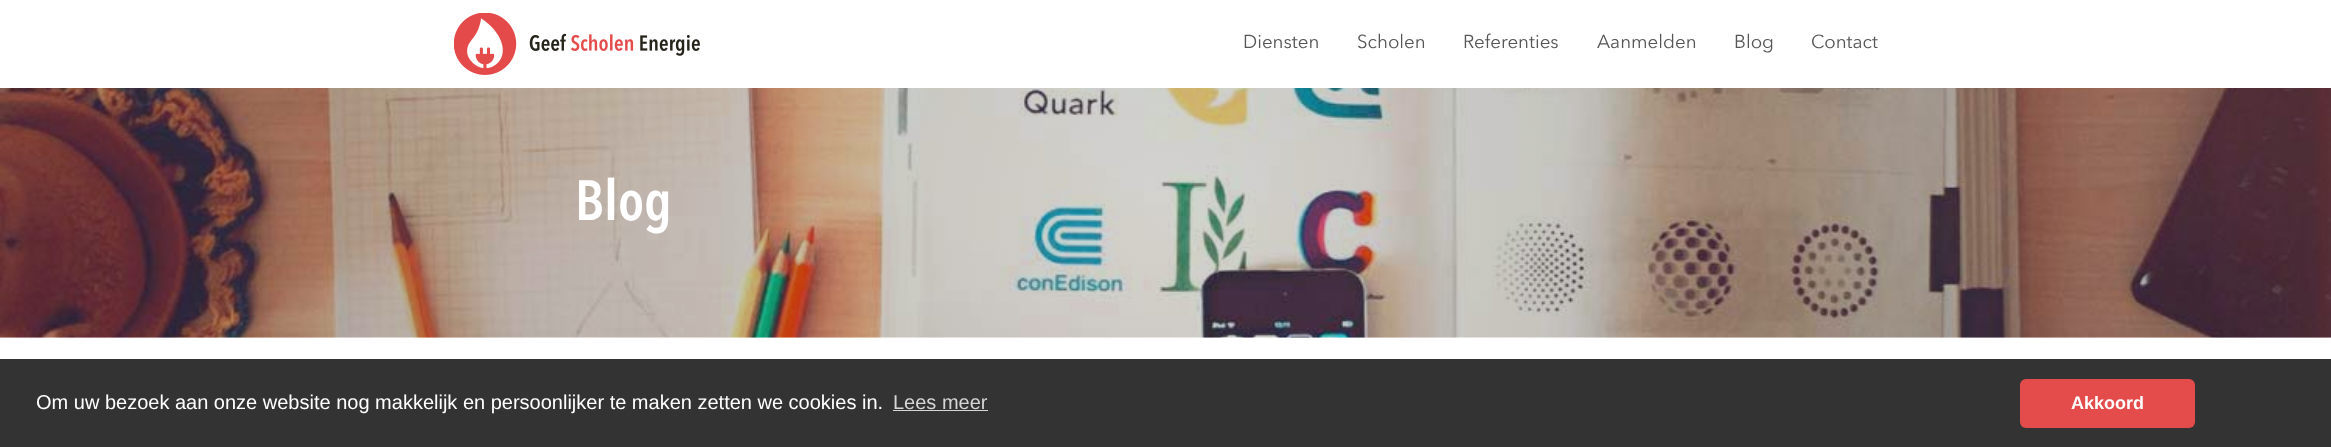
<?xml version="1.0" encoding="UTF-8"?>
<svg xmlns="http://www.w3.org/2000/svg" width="2331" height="447">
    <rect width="100%" height="100%" fill="#FFFFFF"/>
    <image x="454" y="13" width="246" height="62" href="img_01.png"/>
    <text x="1243" y="48" font-family="Avenir Next" font-size="18.75" fill="#555555">Diensten</text>
    <text x="1357" y="48" font-family="Avenir Next" font-size="18.75" fill="#555555">Scholen</text>
    <text x="1463" y="48" font-family="Avenir Next" font-size="18.75" fill="#555555">Referenties</text>
    <text x="1597" y="48" font-family="Avenir Next" font-size="18.75" fill="#555555">Aanmelden</text>
    <text x="1734" y="48" font-family="Avenir Next" font-size="18.75" fill="#555555">Blog</text>
    <text x="1811" y="48" font-family="Avenir Next" font-size="18.75" fill="#555555">Contact</text>
    <image x="0" y="88" width="2331" height="250" href="img_02.png"/>
    <text x="575" y="220" font-family="Avenir Next" font-size="56" font-weight="600" fill="#FFFFFF">Blog</text>
    <rect x="0" y="359" width="2331" height="88" fill="#333333"/>
    <text x="36" y="409" font-family="Liberation Sans" font-size="20" fill="#FFFFFF">Om uw bezoek aan onze website nog makkelijk en persoonlijker te maken zetten we cookies in.</text>
    <text x="893" y="409" font-family="Liberation Sans" font-size="20" fill="#D6D6D6">Lees meer</text>
    <rect x="893" y="410" width="95" height="1" fill="#D6D6D6"/>
    <rect x="2020" y="379" width="175" height="49" rx="6" fill="#E44B4B"/>
    <text x="2071" y="409" font-family="Liberation Sans" font-size="18" font-weight="700" fill="#FFFFFF">Akkoord</text>
</svg>
